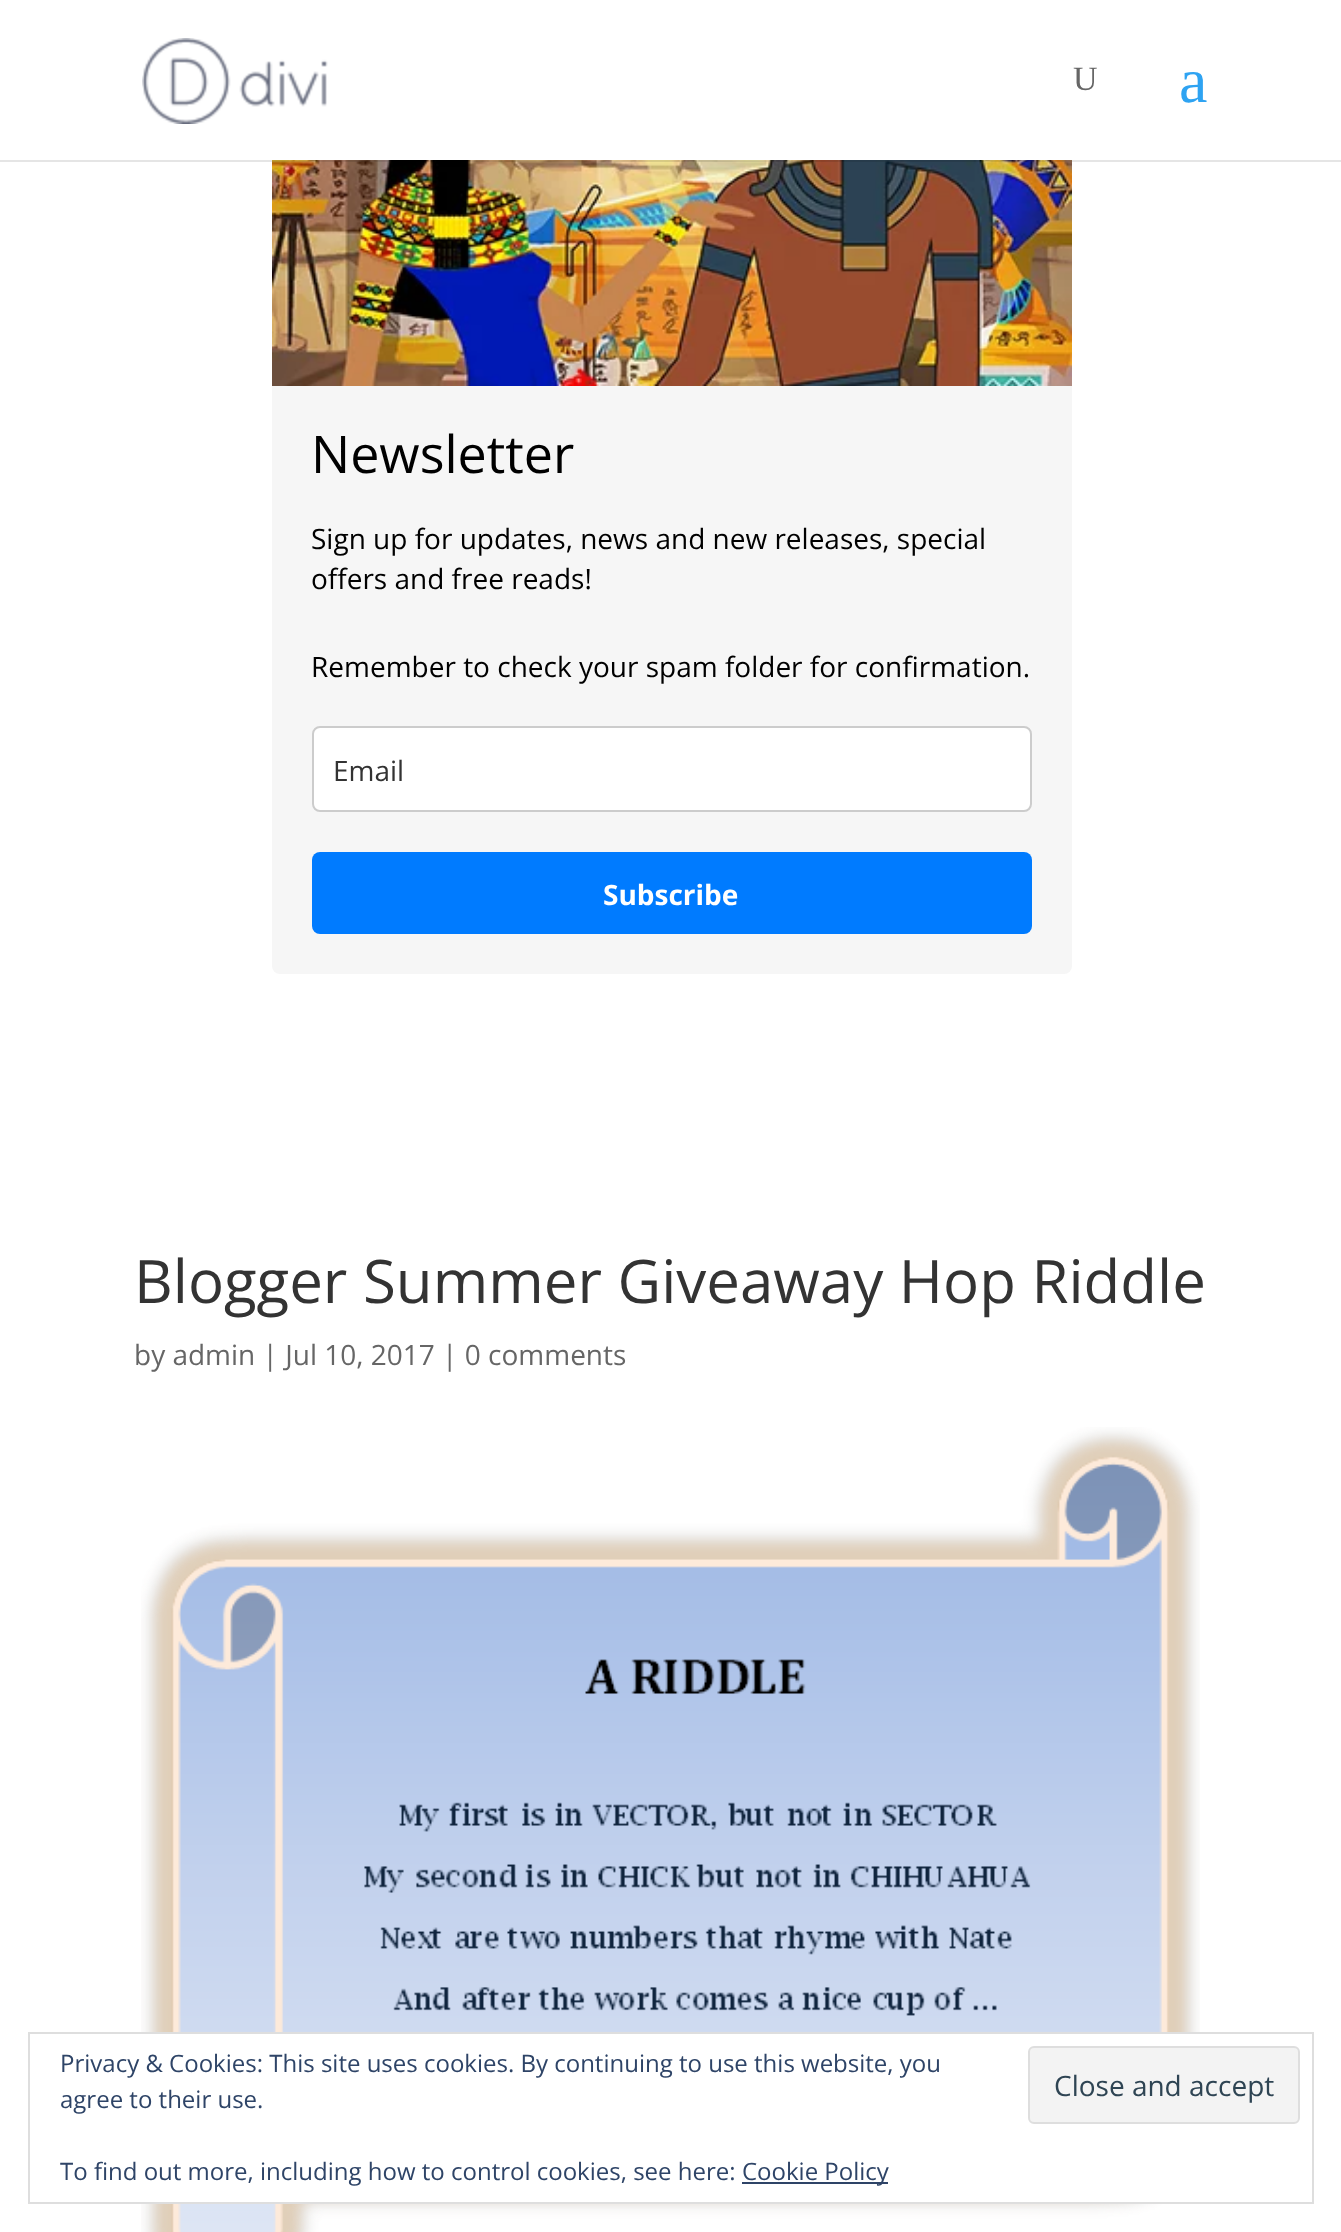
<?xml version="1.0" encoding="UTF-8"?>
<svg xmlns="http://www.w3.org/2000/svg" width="1341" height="2232">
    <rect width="100%" height="100%" fill="#FFFFFF"/>
    <rect x="272" y="0" width="800" height="974" rx="8" fill="#F6F6F6"/>
    <image x="272" y="160" width="800" height="226" href="img_03.png"/>
    <rect x="0" y="160" width="1341" height="2" fill="#000000" fill-opacity="0.1"/>
    <rect x="272" y="0" width="800" height="160" fill="#FFFFFF"/>
    <image x="142" y="38" width="186" height="86" href="img_01.png"/>
    <text x="1073" y="90" font-family="Liberation Serif" font-size="34" fill="#666666">U</text>
    <text x="1179" y="102" font-family="Liberation Serif" font-size="64" fill="#2EA3F2">a</text>
    <text x="134" y="1303" font-family="Open Sans" font-size="60" fill="#333333">Blogger Summer Giveaway Hop Riddle</text>
    <text x="134" y="1365" font-family="Open Sans" font-size="28" fill="#666666">by admin | Jul 10, 2017 | 0 comments</text>
    <image x="141" y="1427" width="1059" height="805" href="img_02.png"/>
    <text x="311" y="473" font-family="Open Sans" font-size="52" fill="#000000">Newsletter</text>
    <text font-family="Open Sans" font-size="28" fill="#000000">
        <tspan x="311" y="549">Sign up for updates, news and new releases, special</tspan>
        <tspan x="311" y="589">offers and free reads!</tspan>
    </text>
    <text x="311" y="677" font-family="Open Sans" font-size="28" fill="#000000">Remember to check your spam folder for confirmation.</text>
    <rect x="313" y="727" width="718" height="84" rx="7" fill="#FFFFFF" stroke="#CCCCCC" stroke-width="2"/>
    <text x="333" y="781" font-family="Open Sans" font-size="28" fill="#333333">Email</text>
    <rect x="312" y="852" width="720" height="82" rx="8" fill="#007BFF"/>
    <text x="603" y="905" font-family="Open Sans" font-size="28" font-weight="700" fill="#FFFFFF">Subscribe</text>
    <rect x="141" y="2034" width="1059" height="168" fill="#FFFFFF"/>
    <rect x="29" y="2033" width="1284" height="170" fill="none" stroke="#DEDEDE" stroke-width="2"/>
    <text font-family="Open Sans" font-size="24" fill="#2E4467">
        <tspan x="60" y="2072">Privacy &amp; Cookies: This site uses cookies. By continuing to use this website, you</tspan>
        <tspan x="60" y="2108">agree to their use.</tspan>
    </text>
    <rect x="1029" y="2047" width="270" height="76" rx="5" fill="#F3F3F3" stroke="#DEDEDE" stroke-width="2"/>
    <text x="1054" y="2096" font-family="Open Sans" font-size="28" fill="#2E4453">Close and accept</text>
    <text x="60" y="2180" font-family="Open Sans" font-size="24" fill="#2E4467">To find out more, including how to control cookies, see here:</text>
    <rect x="742" y="2182" width="146" height="2" fill="#2E4467"/>
    <text x="742" y="2180" font-family="Open Sans" font-size="24" fill="#2E4467">Cookie Policy</text>
</svg>
